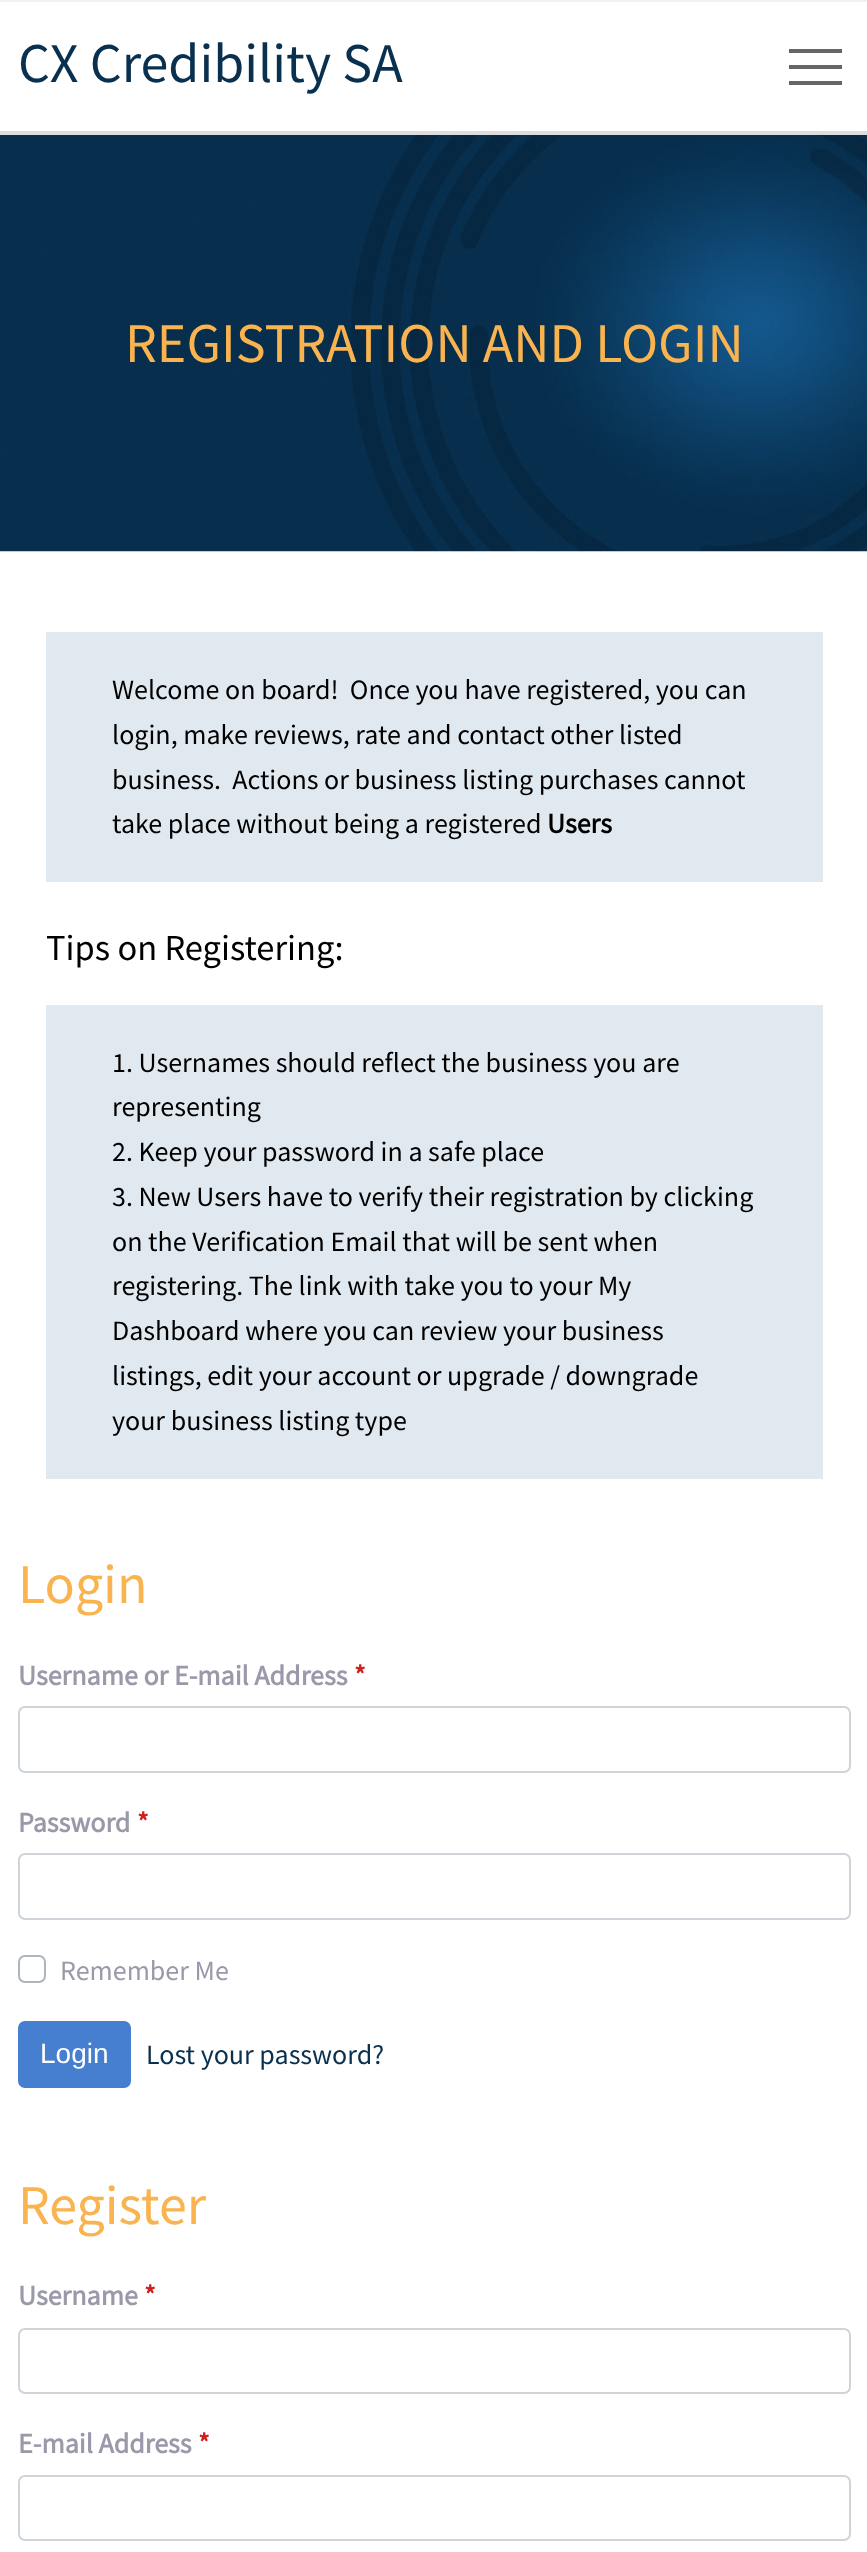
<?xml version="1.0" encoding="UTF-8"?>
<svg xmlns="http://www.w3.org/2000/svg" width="867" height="2552">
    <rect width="100%" height="100%" fill="#F0F0F0"/>
    <rect x="0" y="2" width="867" height="129" fill="#FFFFFF"/>
    <rect x="0" y="131" width="867" height="4" fill="#DDDDDD"/>
    <text x="18" y="82" font-family="Source Sans Pro" font-size="56" fill="#09304E">CX Credibility SA</text>
    <rect x="789" y="49" width="53" height="4" fill="#666666"/>
    <rect x="789" y="81" width="53" height="4" fill="#666666"/>
    <rect x="789" y="65" width="53" height="4" fill="#666666"/>
    <rect x="0" y="551" width="867" height="2001" fill="#FFFFFF"/>
    <image x="0" y="135" width="867" height="417" href="img_01.png"/>
    <text x="125" y="362" font-family="Source Sans Pro" font-size="56" fill="#F9B34F">REGISTRATION AND LOGIN</text>
    <rect x="46" y="632" width="777" height="250" fill="#E1E9F0"/>
    <text font-family="Source Sans Pro" font-size="28" fill="#000000" xml:space="preserve"><tspan x="112" y="699">Welcome on board!  Once you have registered, you can</tspan><tspan x="112" y="744">login, make reviews, rate and contact other listed</tspan><tspan x="112" y="789">business.  Actions or business listing purchases cannot</tspan><tspan x="112" y="833">take place without being a registered</tspan></text>
    <text x="547" y="833" font-family="Source Sans Pro" font-size="28" font-weight="700" fill="#000000">Users</text>
    <text x="46" y="960" font-family="Source Sans Pro" font-size="36.5" fill="#000000">Tips on Registering:</text>
    <rect x="46" y="1005" width="777" height="474" fill="#E1E9F0"/>
    <text font-family="Source Sans Pro" font-size="28" fill="#000000">
        <tspan x="112" y="1072">1. Usernames should reflect the business you are</tspan>
        <tspan x="112" y="1116">representing</tspan>
        <tspan x="112" y="1161">2. Keep your password in a safe place</tspan>
        <tspan x="112" y="1206">3. New Users have to verify their registration by clicking</tspan>
        <tspan x="112" y="1251">on the Verification Email that will be sent when</tspan>
        <tspan x="112" y="1295">registering. The link with take you to your My</tspan>
        <tspan x="112" y="1340">Dashboard where you can review your business</tspan>
        <tspan x="112" y="1385">listings, edit your account or upgrade / downgrade</tspan>
        <tspan x="112" y="1430">your business listing type</tspan>
    </text>
    <text x="18" y="1603" font-family="Source Sans Pro" font-size="56" fill="#F9B34F">Login</text>
    <text x="18" y="1685" font-family="Source Sans Pro" font-size="28" font-weight="700" fill="#9999AA">Username or E-mail Address</text>
    <text x="354" y="1685" font-family="Source Sans Pro" font-size="28" font-weight="700" fill="#CD201F">*</text>
    <rect x="19" y="1707" width="831" height="65" rx="6" fill="none" stroke="#CED4DA" stroke-width="2"/>
    <text x="18" y="1832" font-family="Source Sans Pro" font-size="28" font-weight="700" fill="#9999AA">Password</text>
    <text x="137" y="1832" font-family="Source Sans Pro" font-size="28" font-weight="700" fill="#CD201F">*</text>
    <rect x="19" y="1854" width="831" height="65" rx="6" fill="none" stroke="#CED4DA" stroke-width="2"/>
    <rect x="19" y="1956" width="26" height="26" rx="6" fill="none" stroke="#ADB5BD" stroke-width="2"/>
    <text x="60" y="1980" font-family="Source Sans Pro" font-size="28" fill="#9999AA">Remember Me</text>
    <rect x="19" y="2022" width="111" height="65" rx="6" fill="#467FCF" stroke="#467FCF" stroke-width="2"/>
    <text x="40" y="2063" font-family="Liberation Sans" font-size="28" fill="#FFFFFF">Login</text>
    <text x="146" y="2064" font-family="Source Sans Pro" font-size="28" fill="#09304E">Lost your password?</text>
    <text x="18" y="2224" font-family="Source Sans Pro" font-size="56" fill="#F9B34F">Register</text>
    <text x="18" y="2305" font-family="Source Sans Pro" font-size="28" font-weight="700" fill="#9999AA">Username</text>
    <text x="144" y="2305" font-family="Source Sans Pro" font-size="28" font-weight="700" fill="#CD201F">*</text>
    <rect x="19" y="2329" width="831" height="64" rx="6" fill="none" stroke="#CED4DA" stroke-width="2"/>
    <text x="18" y="2453" font-family="Source Sans Pro" font-size="28" font-weight="700" fill="#9999AA">E-mail Address</text>
    <text x="198" y="2453" font-family="Source Sans Pro" font-size="28" font-weight="700" fill="#CD201F">*</text>
    <rect x="19" y="2476" width="831" height="64" rx="6" fill="none" stroke="#CED4DA" stroke-width="2"/>
</svg>
